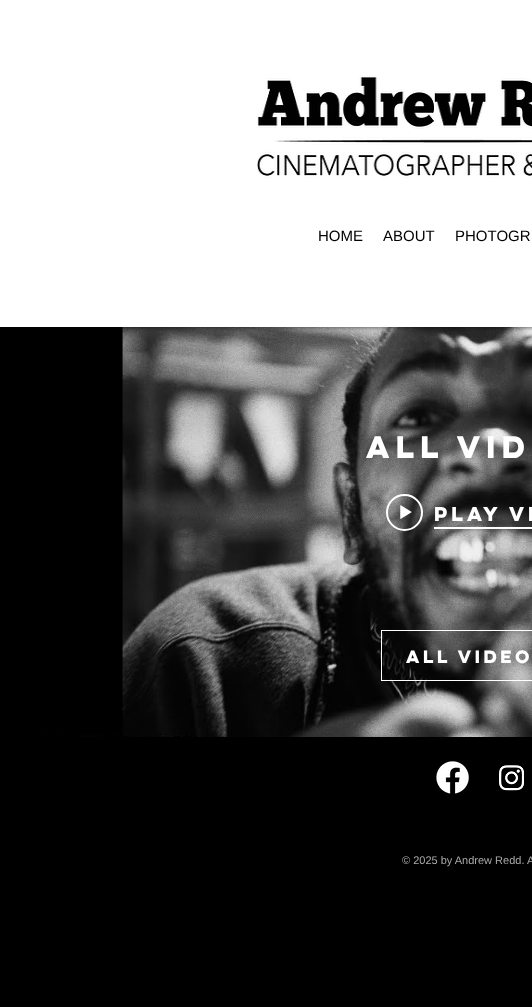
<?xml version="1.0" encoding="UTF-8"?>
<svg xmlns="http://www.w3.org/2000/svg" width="532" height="1007">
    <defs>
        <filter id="blur1" x="-50%" y="-200%" width="200%" height="500%"><feGaussianBlur stdDeviation="2.5"/></filter>
    </defs>
    <rect width="100%" height="100%" fill="#000000"/>
    <image x="22" y="327" width="100" height="410" href="img_02.png"/>
    <image x="122" y="327" width="410" height="410" href="img_03.png"/>
    <rect x="0" y="0" width="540" height="327" fill="#000000" fill-opacity="0.7" filter="url(#blur1)"/>
    <rect x="0" y="0" width="532" height="327" fill="#FFFFFF"/>
    <image x="257" y="75" width="275" height="103" href="img_01.png"/>
    <text x="318" y="241" font-family="Liberation Sans" font-size="15" fill="#000000">HOME</text>
    <text x="383" y="241" font-family="Liberation Sans" font-size="15" fill="#000000">ABOUT</text>
    <text x="455" y="241" font-family="Liberation Sans" font-size="15" fill="#000000">PHOTOGR</text>
    <text x="366" y="458" font-family="'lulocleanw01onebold'" font-size="28" font-weight="700" fill="#FFFFFF">All Vid</text>
    <circle cx="404.5" cy="512.5" r="17.5" fill="none" stroke="#FFFFFF" stroke-width="2"/>
    <image x="400" y="505" width="12" height="14" href="img_04.png"/>
    <rect x="434" y="527" width="98" height="2" fill="#FFFFFF"/>
    <text x="434" y="521" font-family="'lulocleanw01onebold'" font-size="18" font-weight="700" fill="#FFFFFF">Play Vi</text>
    <rect x="381.5" y="630.5" width="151" height="50" fill="none" stroke="#FFFFFF"/>
    <text x="406" y="663" font-family="'lulocleanw01onebold'" font-size="16" font-weight="700" fill="#FFFFFF">All Video</text>
    <image x="436" y="761" width="33" height="33" href="img_05.png"/>
    <image x="499" y="765" width="25" height="26" href="img_06.png"/>
    <text x="402" y="864" font-family="Liberation Sans" font-size="11" fill="#A9A9A9">© 2025 by Andrew Redd. A</text>
</svg>
